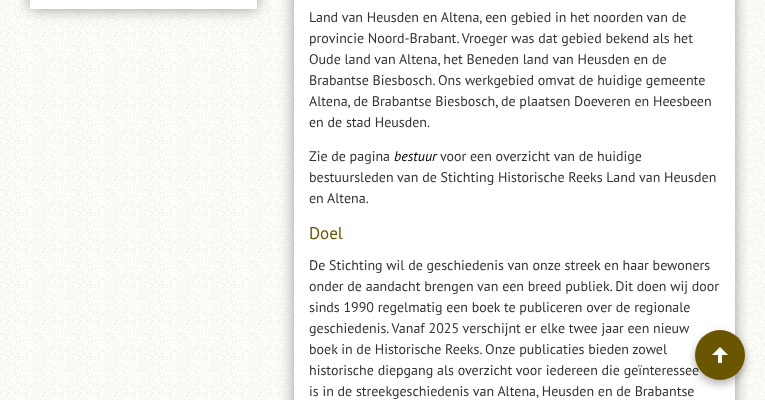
<?xml version="1.0" encoding="UTF-8"?>
<svg xmlns="http://www.w3.org/2000/svg" width="765" height="400">
    <defs>
        <filter id="blur1" x="-50%" y="-200%" width="200%" height="500%"><feGaussianBlur stdDeviation="7.5"/></filter>
        <filter id="blur2" x="-50%" y="-200%" width="200%" height="500%"><feGaussianBlur stdDeviation="4"/></filter>
    </defs>
    <rect width="100%" height="100%" fill="#FFFFFF"/>
    <image x="0" y="0" width="765" height="400" href="img_01.png"/>
    <rect x="30" y="-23" width="227" height="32" fill="#999999" filter="url(#blur1)"/>
    <rect x="30" y="0" width="227" height="9" fill="#FFFFFF"/>
    <rect x="294" y="-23" width="441" height="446" fill="#999999" filter="url(#blur1)"/>
    <rect x="294" y="0" width="441" height="400" fill="#FFFFFF"/>
    <text font-family="PT Sans" font-size="14" fill="#333333">
        <tspan x="309" y="22">Land van Heusden en Altena, een gebied in het noorden van de</tspan>
        <tspan x="309" y="43">provincie Noord-Brabant. Vroeger was dat gebied bekend als het</tspan>
        <tspan x="309" y="64">Oude land van Altena, het Beneden land van Heusden en de</tspan>
        <tspan x="309" y="85">Brabantse Biesbosch. Ons werkgebied omvat de huidige gemeente</tspan>
        <tspan x="309" y="106">Altena, de Brabantse Biesbosch, de plaatsen Doeveren en Heesbeen</tspan>
        <tspan x="309" y="127">en de stad Heusden.</tspan>
    </text>
    <text x="309" y="161" font-family="PT Sans" font-size="14" fill="#333333">Zie de pagina</text>
    <text x="394" y="161" font-family="PT Sans" font-size="14" font-style="italic" fill="#000000">bestuur</text>
    <text x="440" y="161" font-family="PT Sans" font-size="14" fill="#333333">voor een overzicht van de huidige</text>
    <text font-family="PT Sans" font-size="14" fill="#333333">
        <tspan x="309" y="182">bestuursleden van de Stichting Historische Reeks Land van Heusden</tspan>
        <tspan x="309" y="203">en Altena.</tspan>
    </text>
    <text x="309" y="239" font-family="PT Sans" font-size="17" fill="#6B5600">Doel</text>
    <text font-family="PT Sans" font-size="14" fill="#333333">
        <tspan x="309" y="270">De Stichting wil de geschiedenis van onze streek en haar bewoners</tspan>
        <tspan x="309" y="291">onder de aandacht brengen van een breed publiek. Dit doen wij door</tspan>
        <tspan x="309" y="312">sinds 1990 regelmatig een boek te publiceren over de regionale</tspan>
        <tspan x="309" y="333">geschiedenis. Vanaf 2025 verschijnt er elke twee jaar een nieuw</tspan>
        <tspan x="309" y="354">boek in de Historische Reeks. Onze publicaties bieden zowel</tspan>
        <tspan x="309" y="375">historische diepgang als overzicht voor iedereen die geïnteressee</tspan>
        <tspan x="309" y="396">is in de streekgeschiedenis van Altena, Heusden en de Brabantse</tspan>
    </text>
    <rect x="695" y="334" width="50" height="50" rx="25" fill="#000000" fill-opacity="0.3" filter="url(#blur2)"/>
    <circle cx="720" cy="355" r="25" fill="#6B5600"/>
    <image x="712" y="347" width="16" height="16" href="img_02.png"/>
</svg>
